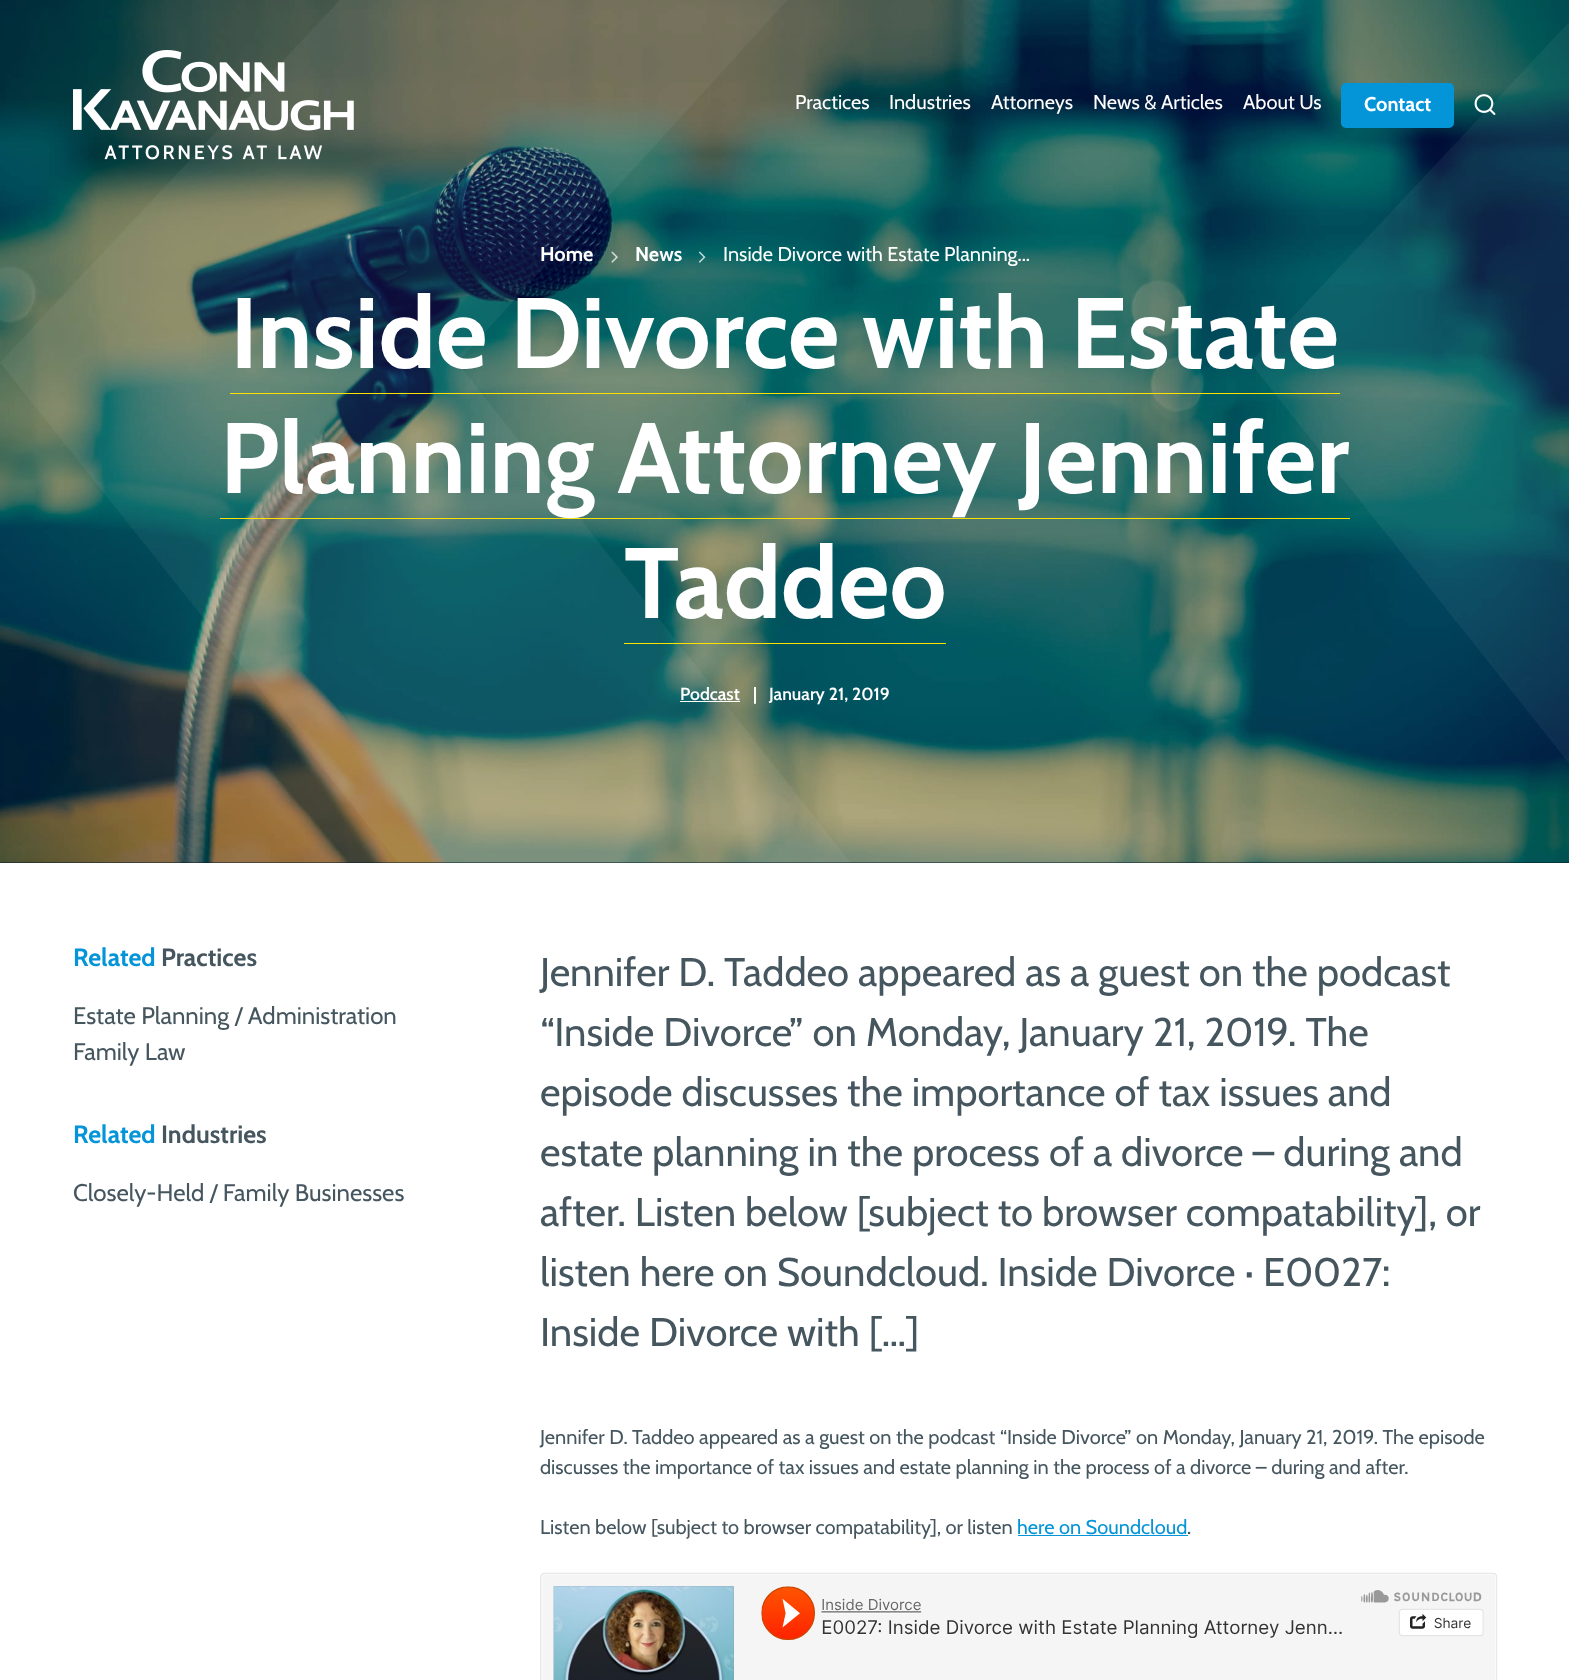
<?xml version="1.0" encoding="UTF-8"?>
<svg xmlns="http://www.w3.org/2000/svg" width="1569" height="1680">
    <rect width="100%" height="100%" fill="#FFFFFF"/>
    <rect x="0" y="862" width="1569" height="1" fill="#021D2B"/>
    <image x="0" y="0" width="1569" height="863" href="img_03.png"/>
    <image x="0" y="0" width="1569" height="863" href="img_04.png"/>
    <image x="73" y="50" width="281" height="110" href="img_01.png"/>
    <text x="795" y="109" font-family="Cabin" font-size="20" fill="#FFFFFF">Practices</text>
    <text x="889" y="109" font-family="Cabin" font-size="20" fill="#FFFFFF">Industries</text>
    <text x="991" y="109" font-family="Cabin" font-size="20" fill="#FFFFFF">Attorneys</text>
    <text x="1093" y="109" font-family="Cabin" font-size="20" fill="#FFFFFF">News &amp; Articles</text>
    <text x="1243" y="109" font-family="Cabin" font-size="20" fill="#FFFFFF">About Us</text>
    <rect x="1342.5" y="84.5" width="110" height="42" rx="3.5" fill="#0494D8" stroke="#0494D8" stroke-width="3"/>
    <text x="1364" y="111" font-family="Cabin" font-size="20" font-weight="700" fill="#FFFFFF">Contact</text>
    <image x="1474" y="94" width="22" height="21" href="img_02.png"/>
    <text x="540" y="261" font-family="Cabin" font-size="20" font-weight="700" fill="#FFFFFF">Home</text>
    <image x="611" y="251" width="7" height="12" href="img_05.png"/>
    <text x="635" y="261" font-family="Cabin" font-size="20" font-weight="700" fill="#FFFFFF">News</text>
    <image x="698" y="251" width="8" height="12" href="img_06.png"/>
    <text x="723" y="261" font-family="Cabin" font-size="20" fill="#FFFFFF">Inside Divorce with Estate Planning...</text>
    <text x="230" y="368" font-family="Cabin" font-size="100" font-weight="700" fill="#FFFFFF">Inside Divorce with Estate</text>
    <rect x="230" y="393" width="1110" height="1" fill="#FDE200"/>
    <rect x="220" y="518" width="1130" height="1" fill="#FDE200"/>
    <text x="220" y="493" font-family="Cabin" font-size="100" font-weight="700" fill="#FFFFFF">Planning Attorney Jennifer</text>
    <text x="624" y="618" font-family="Cabin" font-size="100" font-weight="700" fill="#FFFFFF">Taddeo</text>
    <rect x="624" y="643" width="322" height="1" fill="#FDE200"/>
    <text x="680" y="700" font-family="Cabin" font-size="17.5" font-weight="600" fill="#FFFFFF">Podcast</text>
    <rect x="680" y="701" width="60" height="1" fill="#FFFFFF"/>
    <text x="753" y="700" font-family="Cabin" font-size="17.5" font-weight="600" fill="#FFFFFF">|</text>
    <text x="769" y="700" font-family="Cabin" font-size="17.5" font-weight="600" fill="#FFFFFF">January 21, 2019</text>
    <text x="73" y="966" font-family="Cabin" font-size="25" font-weight="700" fill="#0494D8">Related</text>
    <text x="161" y="966" font-family="Cabin" font-size="25" font-weight="700" fill="#45565F">Practices</text>
    <text font-family="Cabin" font-size="24" fill="#45565F">
        <tspan x="73" y="1024">Estate Planning / Administration</tspan>
        <tspan x="73" y="1060">Family Law</tspan>
    </text>
    <text x="73" y="1143" font-family="Cabin" font-size="25" font-weight="700" fill="#0494D8">Related</text>
    <text x="161" y="1143" font-family="Cabin" font-size="25" font-weight="700" fill="#45565F">Industries</text>
    <text x="73" y="1201" font-family="Cabin" font-size="24" fill="#45565F">Closely-Held / Family Businesses</text>
    <text font-family="Cabin" font-size="40" fill="#45565F">
        <tspan x="540" y="986">Jennifer D. Taddeo appeared as a guest on the podcast</tspan>
        <tspan x="540" y="1046">“Inside Divorce” on Monday, January 21, 2019. The</tspan>
        <tspan x="540" y="1106">episode discusses the importance of tax issues and</tspan>
        <tspan x="540" y="1166">estate planning in the process of a divorce – during and</tspan>
        <tspan x="540" y="1226">after. Listen below [subject to browser compatability], or</tspan>
        <tspan x="540" y="1286">listen here on Soundcloud. Inside Divorce · E0027:</tspan>
        <tspan x="540" y="1346">Inside Divorce with […]</tspan>
    </text>
    <text font-family="Cabin" font-size="20" fill="#45565F">
        <tspan x="540" y="1444">Jennifer D. Taddeo appeared as a guest on the podcast “Inside Divorce” on Monday, January 21, 2019. The episode</tspan>
        <tspan x="540" y="1474">discusses the importance of tax issues and estate planning in the process of a divorce – during and after.</tspan>
    </text>
    <text x="540" y="1534" font-family="Cabin" font-size="20" fill="#45565F">Listen below [subject to browser compatability], or listen</text>
    <text x="1017" y="1534" font-family="Cabin" font-size="20" fill="#0494D8">here on Soundcloud</text>
    <rect x="1018" y="1535" width="170" height="1" fill="#0494D8"/>
    <text x="1187" y="1534" font-family="Cabin" font-size="20" fill="#45565F">.</text>
    <image x="540" y="1572" width="958" height="108" href="img_07.png"/>
</svg>
